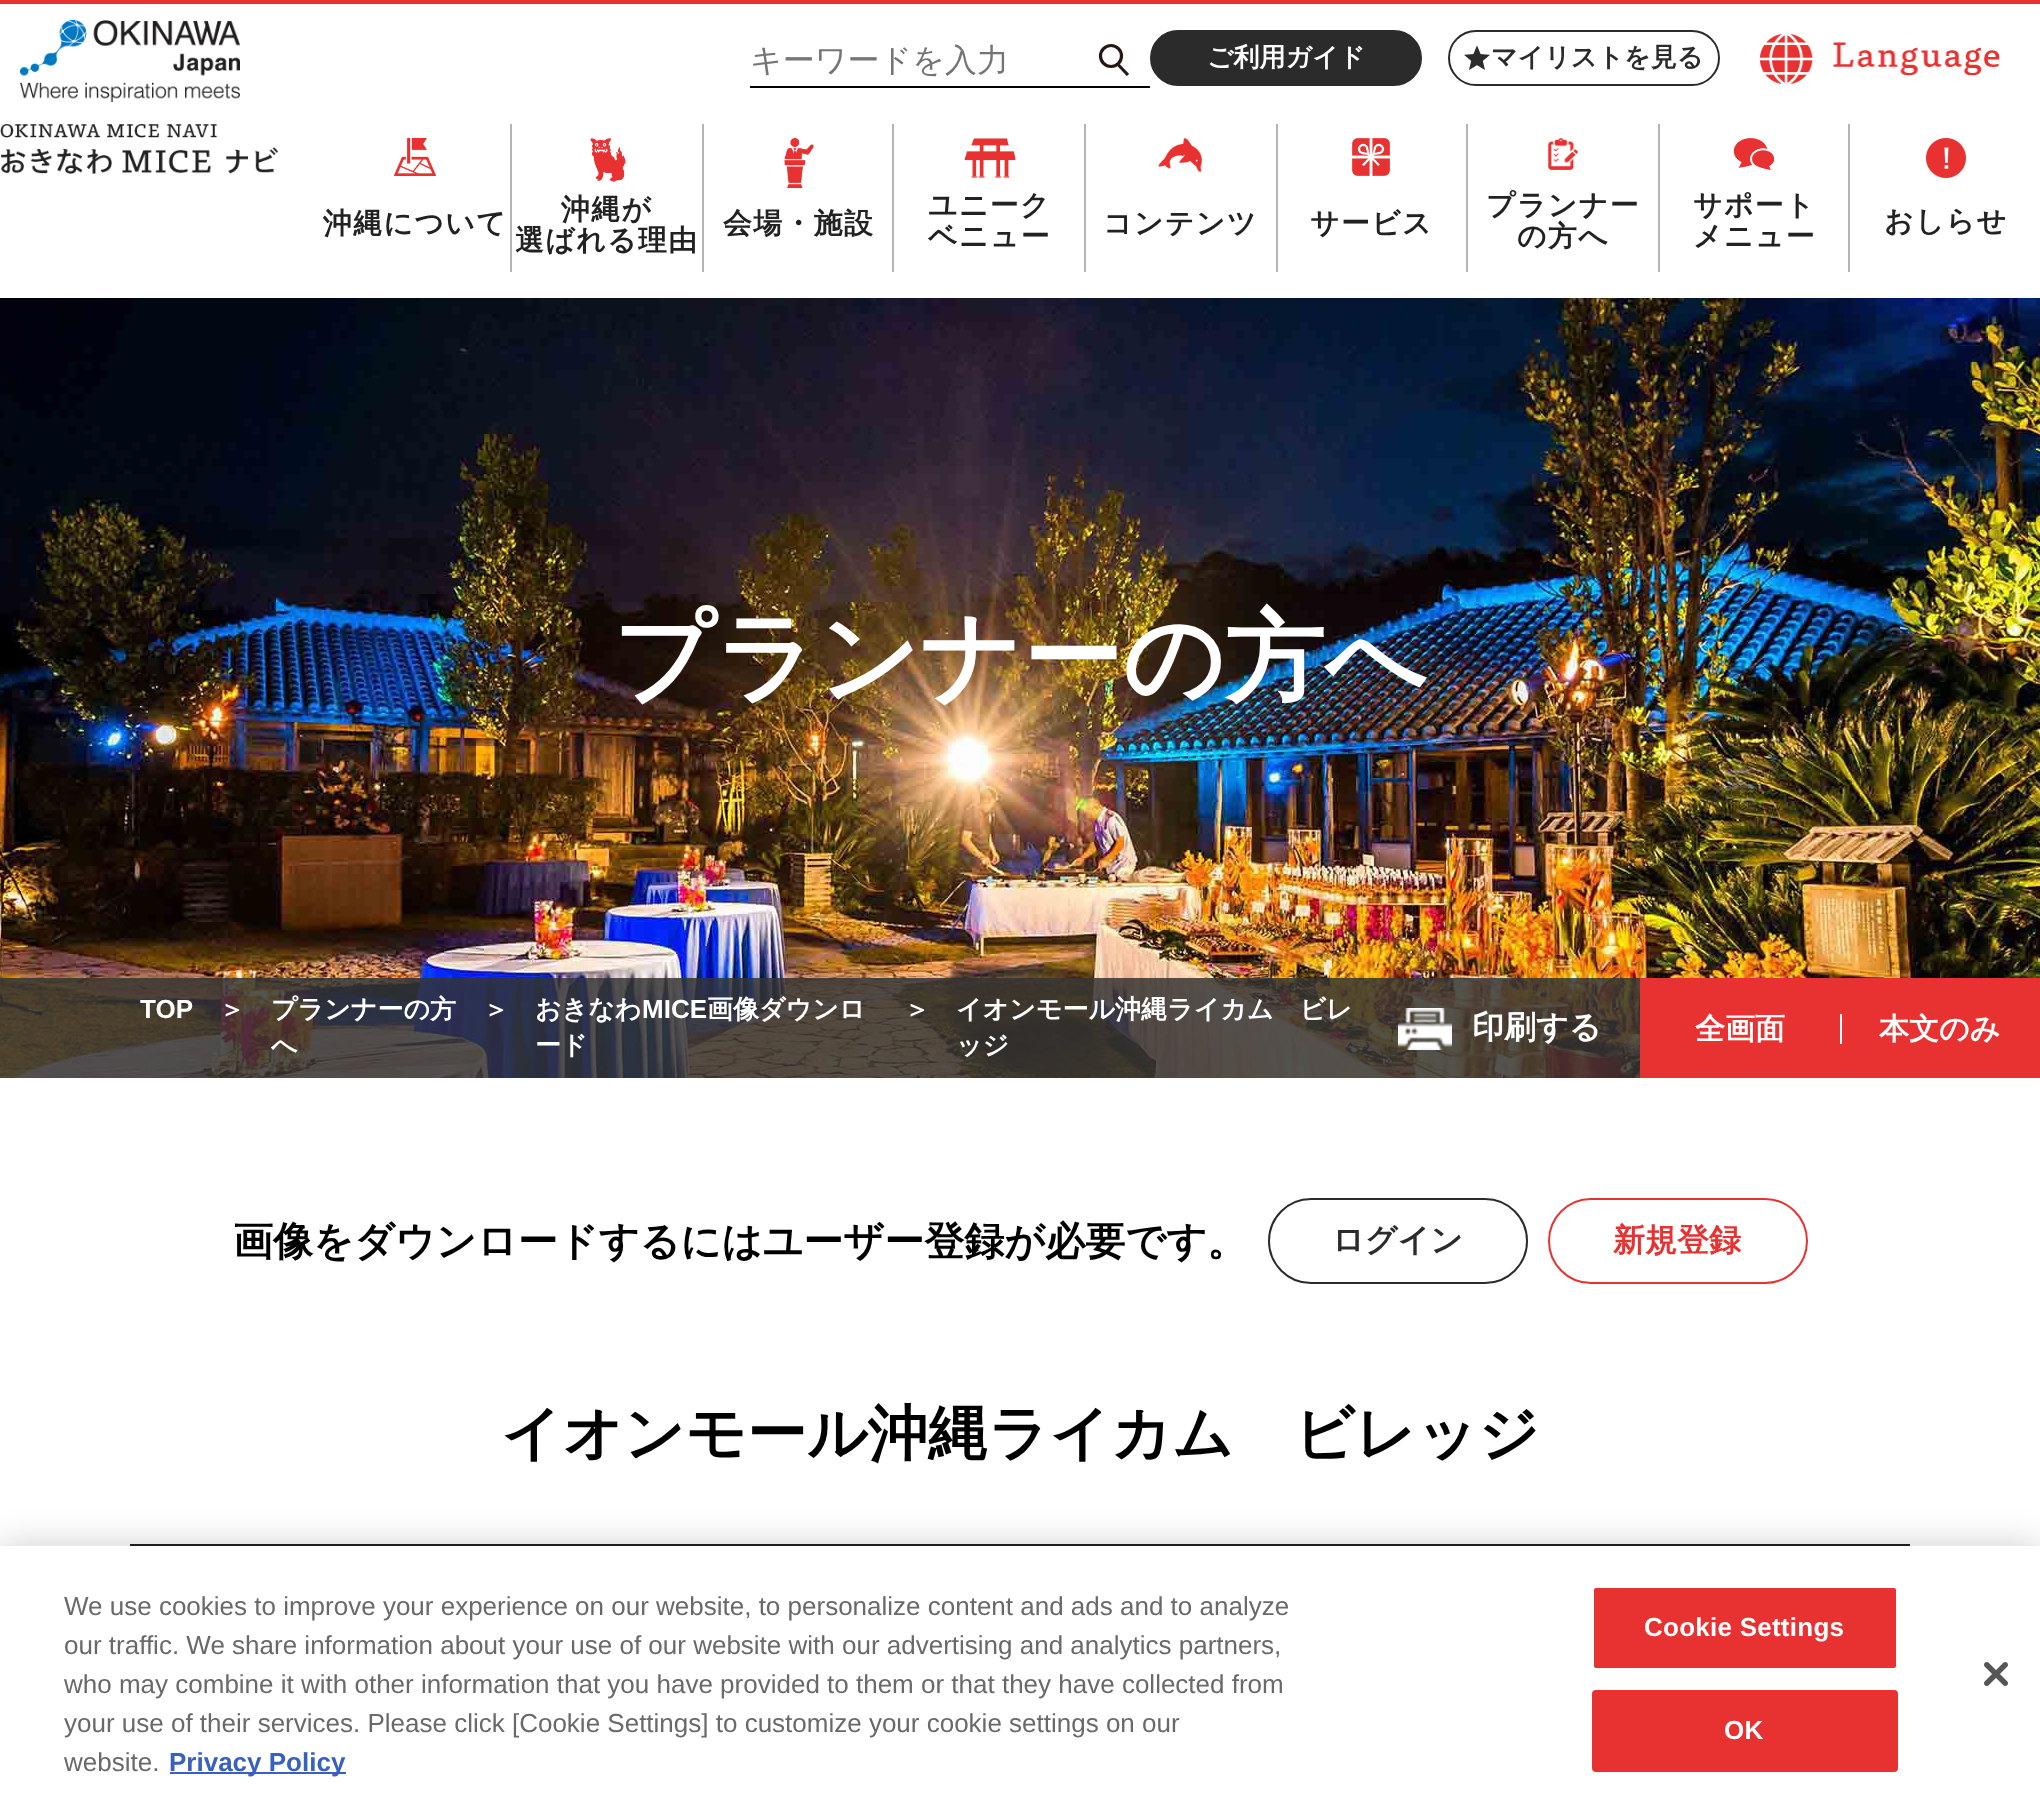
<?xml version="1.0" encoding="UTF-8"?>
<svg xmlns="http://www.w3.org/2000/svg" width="2040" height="1801">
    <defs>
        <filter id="blur1" x="-50%" y="-200%" width="200%" height="500%"><feGaussianBlur stdDeviation="18"/></filter>
    </defs>
    <rect width="100%" height="100%" fill="#FFFFFF"/>
    <rect x="0" y="0" width="2040" height="4" fill="#E83131"/>
    <image x="20" y="20" width="220" height="82" href="img_01.png"/>
    <rect x="750" y="86" width="400" height="2" fill="#040000"/>
    <text x="750" y="71" font-family="WenQuanYi Zen Hei" font-size="32" font-weight="500" fill="#757575">キーワードを入力</text>
    <circle cx="1111" cy="56" r="10.5" fill="none" stroke="#231815" stroke-width="3.2"/>
    <path d="M 1117.5 64 L 1128 75" fill="none" stroke="#231815" stroke-width="3.2"/>
    <rect x="1151" y="31" width="270" height="54" rx="27" fill="#2B2B2B" stroke="#2B2B2B" stroke-width="2"/>
    <text x="1207" y="66" font-family="WenQuanYi Zen Hei" font-size="26" font-weight="700" fill="#FFFFFF">ご利用ガイド</text>
    <rect x="1449" y="31" width="270" height="54" rx="27" fill="none" stroke="#2B2B2B" stroke-width="2"/>
    <image x="1464" y="45" width="26" height="25" href="img_02.png"/>
    <text x="1491" y="66" font-family="WenQuanYi Zen Hei" font-size="26" font-weight="700" fill="#2B2B2B">マイリストを見る</text>
    <image x="1760" y="34" width="240" height="50" href="img_03.png"/>
    <image x="0" y="124" width="278" height="50" href="img_04.png"/>
    <image x="394" y="138" width="42" height="38" href="img_05.png"/>
    <text x="323" y="233" font-family="WenQuanYi Zen Hei" font-size="28.75" font-weight="700" letter-spacing="1.5" fill="#222222">沖縄について</text>
    <rect x="510" y="124" width="2" height="148" fill="#B5B5B5"/>
    <image x="590" y="138" width="36" height="44" href="img_06.png"/>
    <text x="561" y="219" font-family="WenQuanYi Zen Hei" font-size="28.75" font-weight="700" letter-spacing="1.5" fill="#222222">沖縄が</text>
    <text x="515" y="250" font-family="WenQuanYi Zen Hei" font-size="28.75" font-weight="700" letter-spacing="1.5" fill="#222222">選ばれる理由</text>
    <rect x="702" y="124" width="2" height="148" fill="#B5B5B5"/>
    <image x="784" y="138" width="30" height="50" href="img_07.png"/>
    <text x="723" y="233" font-family="WenQuanYi Zen Hei" font-size="28.75" font-weight="700" letter-spacing="1.5" fill="#222222">会場・施設</text>
    <rect x="892" y="124" width="2" height="148" fill="#B5B5B5"/>
    <image x="964" y="138" width="52" height="40" href="img_08.png"/>
    <text font-family="WenQuanYi Zen Hei" font-size="28.75" font-weight="700" letter-spacing="1.5" fill="#222222">
        <tspan x="928" y="215">ユニーク</tspan>
        <tspan x="928" y="246">ベニュー</tspan>
    </text>
    <rect x="1084" y="124" width="2" height="148" fill="#B5B5B5"/>
    <image x="1158" y="138" width="44" height="34" href="img_09.png"/>
    <text x="1103" y="233" font-family="WenQuanYi Zen Hei" font-size="28.75" font-weight="700" letter-spacing="1.5" fill="#222222">コンテンツ</text>
    <rect x="1276" y="124" width="2" height="148" fill="#B5B5B5"/>
    <image x="1352" y="138" width="38" height="38" href="img_10.png"/>
    <text x="1310" y="233" font-family="WenQuanYi Zen Hei" font-size="28.75" font-weight="700" letter-spacing="1.5" fill="#222222">サービス</text>
    <rect x="1466" y="124" width="2" height="148" fill="#B5B5B5"/>
    <image x="1548" y="138" width="30" height="32" href="img_11.png"/>
    <text x="1486" y="215" font-family="WenQuanYi Zen Hei" font-size="28.75" font-weight="700" letter-spacing="1.5" fill="#222222">プランナー</text>
    <text x="1517" y="246" font-family="WenQuanYi Zen Hei" font-size="28.75" font-weight="700" letter-spacing="1.5" fill="#222222">の方へ</text>
    <rect x="1658" y="124" width="2" height="148" fill="#B5B5B5"/>
    <image x="1734" y="138" width="40" height="32" href="img_12.png"/>
    <text font-family="WenQuanYi Zen Hei" font-size="28.75" font-weight="700" letter-spacing="1.5" fill="#222222">
        <tspan x="1693" y="215">サポート</tspan>
        <tspan x="1693" y="246">メニュー</tspan>
    </text>
    <rect x="1848" y="124" width="2" height="148" fill="#B5B5B5"/>
    <image x="1926" y="138" width="40" height="40" href="img_13.png"/>
    <text x="1884" y="231" font-family="WenQuanYi Zen Hei" font-size="28.75" font-weight="700" letter-spacing="1.5" fill="#222222">おしらせ</text>
    <image x="0" y="298" width="2040" height="780" href="img_14.png"/>
    <text x="613" y="692" font-family="WenQuanYi Zen Hei" font-size="100" font-weight="700" fill="#FFFFFF">プランナーの方へ</text>
    <rect x="0" y="978" width="1640" height="100" fill="#333333" fill-opacity="0.84"/>
    <text x="140" y="1018" font-family="Liberation Sans" font-size="26" font-weight="700" fill="#FFFFFF">TOP</text>
    <text x="219" y="1018" font-family="WenQuanYi Zen Hei" font-size="26" font-weight="700" fill="#FFFFFF">＞</text>
    <text font-family="WenQuanYi Zen Hei" font-size="26" font-weight="700" fill="#FFFFFF">
        <tspan x="271" y="1018">プランナーの方</tspan>
        <tspan x="271" y="1054">へ</tspan>
    </text>
    <text x="483" y="1018" font-family="WenQuanYi Zen Hei" font-size="26" font-weight="700" fill="#FFFFFF">＞</text>
    <text x="535" y="1018" font-family="WenQuanYi Zen Hei" font-size="26" font-weight="700" fill="#FFFFFF">おきなわ</text>
    <text x="642" y="1018" font-family="Liberation Sans" font-size="26" font-weight="700" fill="#FFFFFF">MICE</text>
    <text x="707" y="1018" font-family="WenQuanYi Zen Hei" font-size="26" font-weight="700" fill="#FFFFFF">画像ダウンロ</text>
    <text x="535" y="1054" font-family="WenQuanYi Zen Hei" font-size="26" font-weight="700" fill="#FFFFFF">ード</text>
    <text x="904" y="1018" font-family="WenQuanYi Zen Hei" font-size="26" font-weight="700" fill="#FFFFFF">＞</text>
    <text font-family="WenQuanYi Zen Hei" font-size="26" font-weight="700" fill="#FFFFFF">
        <tspan x="956" y="1018">イオンモール沖縄ライカム　ビレ</tspan>
        <tspan x="956" y="1054">ッジ</tspan>
    </text>
    <image x="1398" y="1008" width="54" height="42" href="img_15.png"/>
    <text x="1472" y="1038" font-family="WenQuanYi Zen Hei" font-size="32" font-weight="700" fill="#FFFFFF">印刷する</text>
    <rect x="1640" y="978" width="400" height="100" fill="#E83131"/>
    <text x="1695" y="1039" font-family="WenQuanYi Zen Hei" font-size="30" font-weight="700" fill="#FFFFFF">全画面</text>
    <rect x="1840" y="1014" width="2" height="30" fill="#FFFFFF"/>
    <text x="1879" y="1039" font-family="WenQuanYi Zen Hei" font-size="30" font-weight="700" fill="#FFFFFF">本文のみ</text>
    <text x="233" y="1255" font-family="WenQuanYi Zen Hei" font-size="40" font-weight="700" fill="#000000">画像をダウンロードするにはユーザー登録が必要です。</text>
    <rect x="1269" y="1199" width="258" height="84" rx="42" fill="none" stroke="#2B2B2B" stroke-width="2"/>
    <text x="1332" y="1251" font-family="WenQuanYi Zen Hei" font-size="32" font-weight="700" fill="#2B2B2B">ログイン</text>
    <rect x="1549" y="1199" width="258" height="84" rx="42" fill="none" stroke="#E83131" stroke-width="2"/>
    <text x="1613" y="1251" font-family="WenQuanYi Zen Hei" font-size="32" font-weight="700" fill="#E83131">新規登録</text>
    <text x="501" y="1454" font-family="WenQuanYi Zen Hei" font-size="60" font-weight="700" fill="#000000">イオンモール沖縄ライカム　ビレッジ</text>
    <rect x="130" y="1544" width="1780" height="2" fill="#222222"/>
    <rect x="0" y="1546" width="2040" height="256" fill="#000000" fill-opacity="0.2" filter="url(#blur1)"/>
    <rect x="0" y="1546" width="2040" height="255" fill="#FFFFFF"/>
    <text font-family="Liberation Sans" font-size="26" fill="#696969">
        <tspan x="64" y="1615">We use cookies to improve your experience on our website, to personalize content and ads and to analyze</tspan>
        <tspan x="64" y="1654">our traffic. We share information about your use of our website with our advertising and analytics partners,</tspan>
        <tspan x="64" y="1693">who may combine it with other information that you have provided to them or that they have collected from</tspan>
        <tspan x="64" y="1732">your use of their services. Please click [Cookie Settings] to customize your cookie settings on our</tspan>
        <tspan x="64" y="1771">website.</tspan>
    </text>
    <rect x="170" y="1772" width="176" height="2" fill="#3860BE"/>
    <text x="169" y="1771" font-family="Liberation Sans" font-size="26" font-weight="700" fill="#3860BE">Privacy Policy</text>
    <rect x="1593" y="1587" width="304" height="82" rx="3" fill="#E83131" stroke="#FFFFFF" stroke-width="2"/>
    <text x="1644" y="1636" font-family="Liberation Sans" font-size="26" font-weight="700" letter-spacing="0.25" fill="#FFFFFF">Cookie Settings</text>
    <rect x="1593" y="1691" width="304" height="80" rx="3" fill="#E83131" stroke="#E83131" stroke-width="2"/>
    <text x="1724" y="1739" font-family="Liberation Sans" font-size="26" font-weight="700" letter-spacing="0.25" fill="#FFFFFF">OK</text>
    <image x="1984" y="1662" width="24" height="24" href="img_16.png"/>
</svg>
